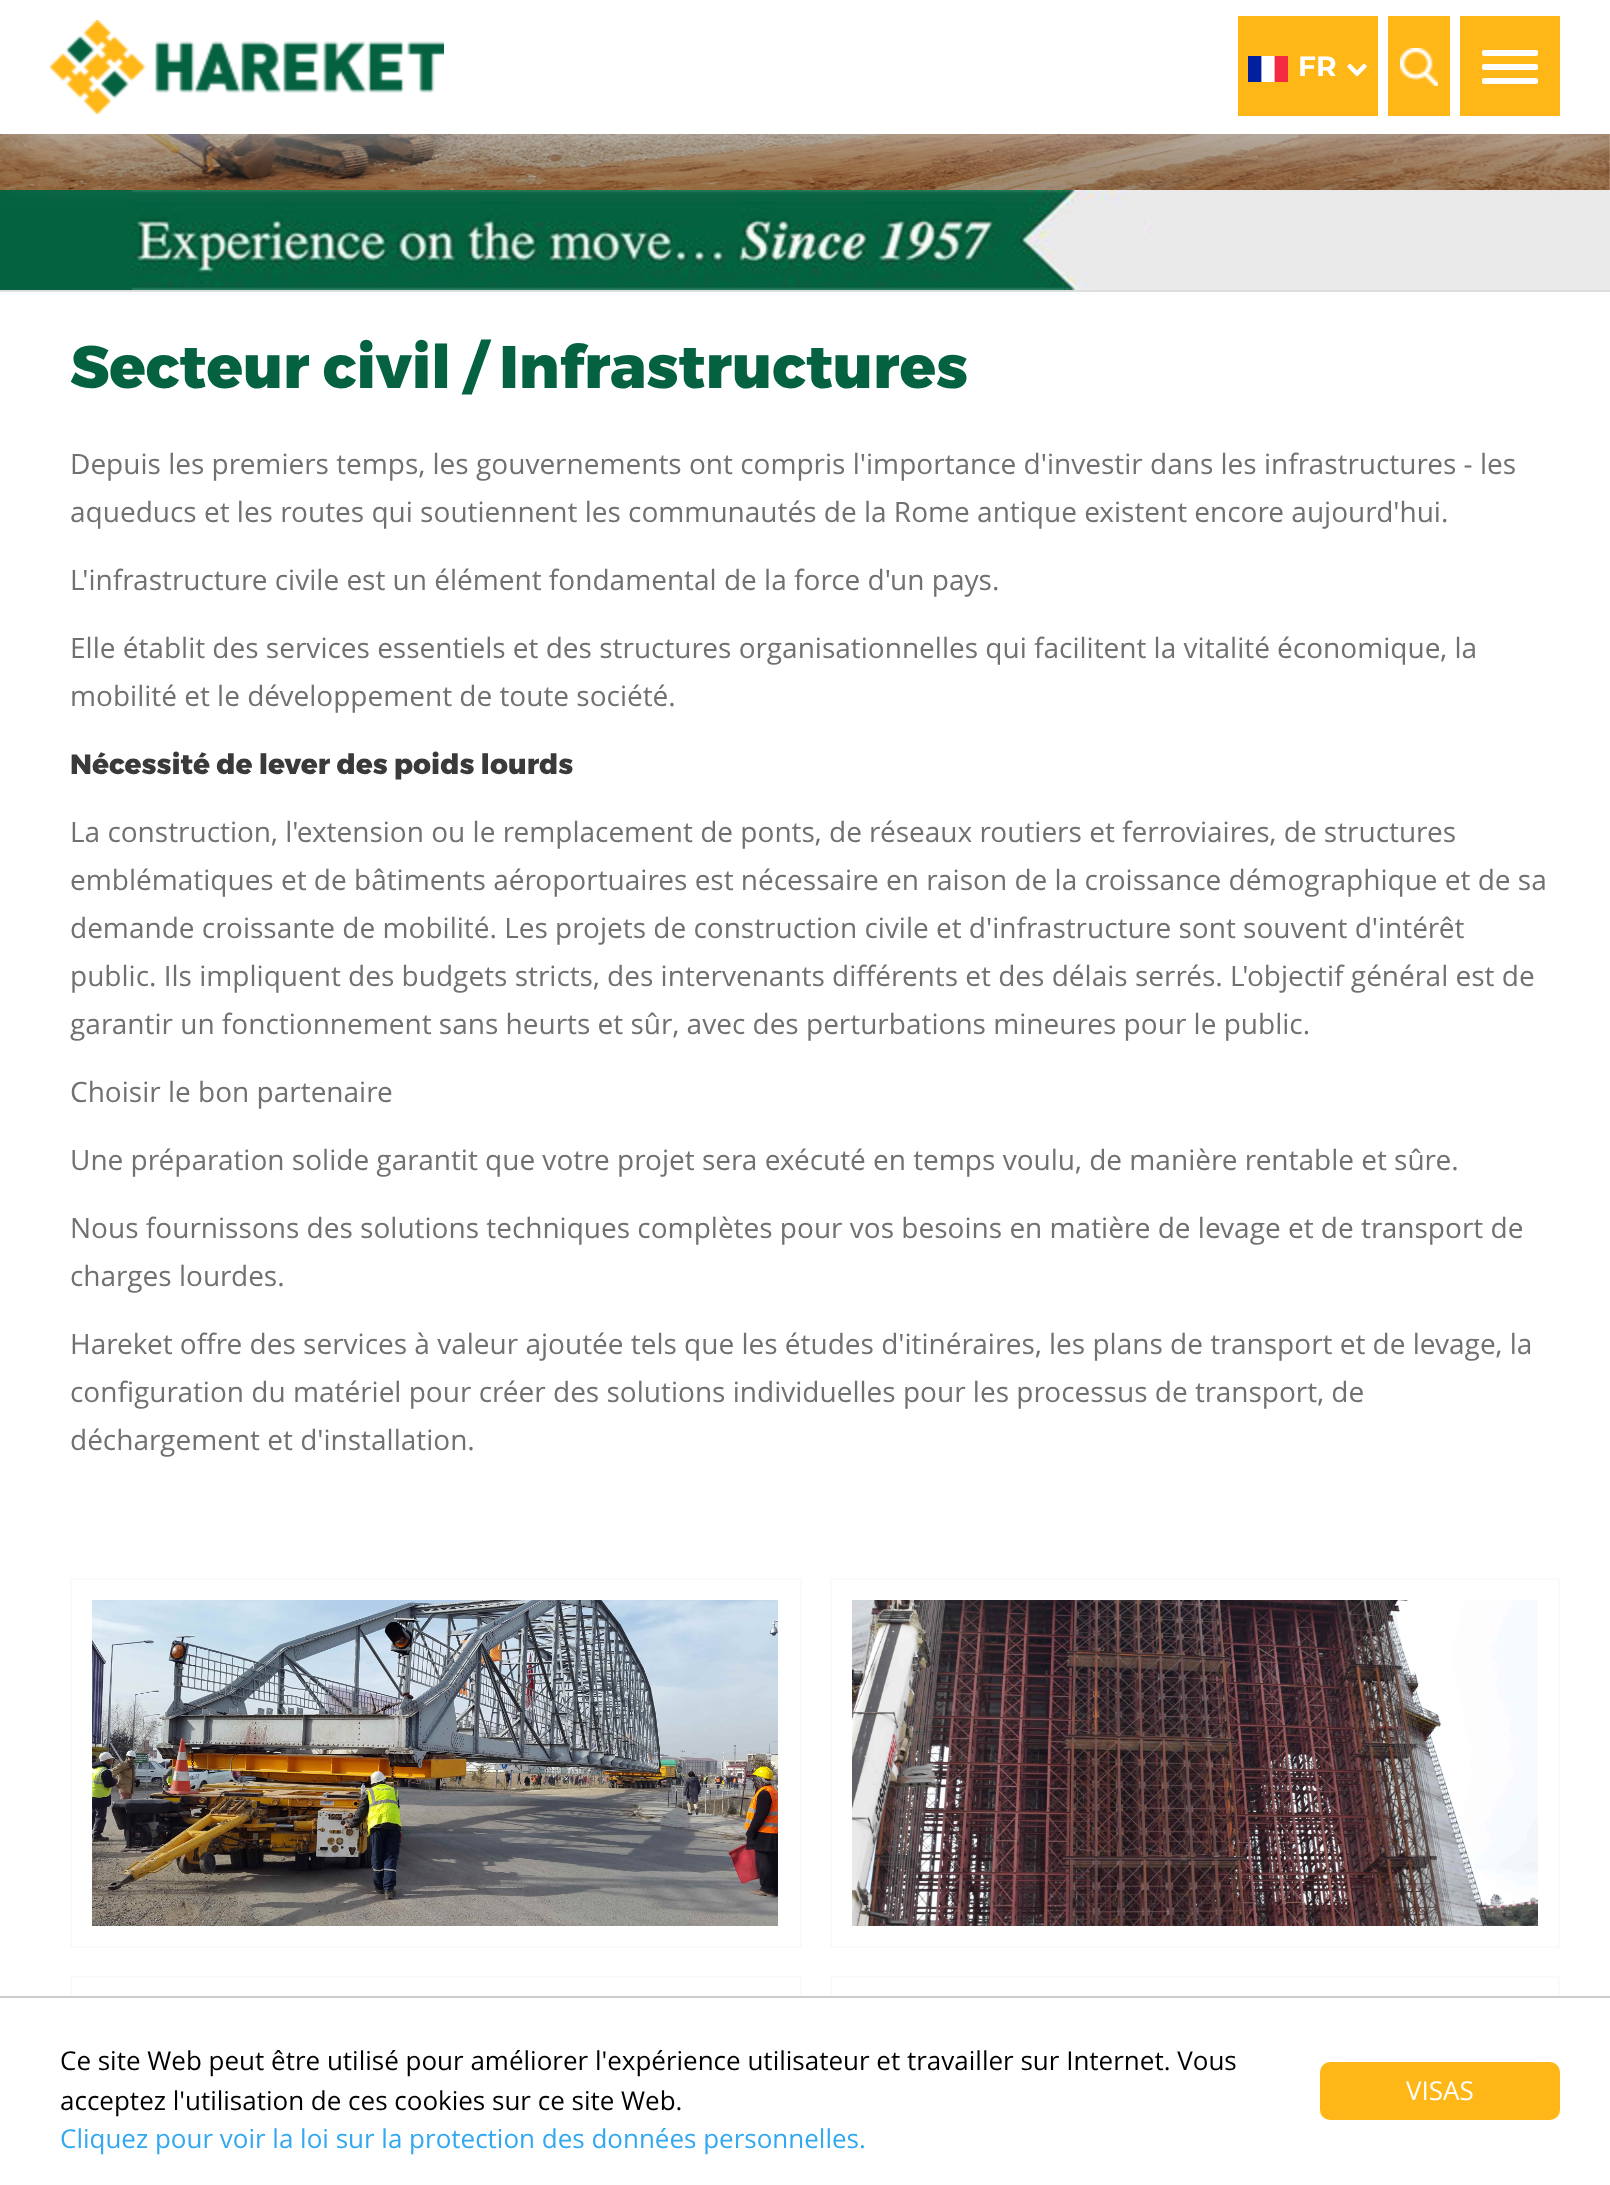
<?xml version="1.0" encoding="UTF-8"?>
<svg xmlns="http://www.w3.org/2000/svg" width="1610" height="2185">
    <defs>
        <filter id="blur1" x="-50%" y="-200%" width="200%" height="500%"><feGaussianBlur stdDeviation="32"/></filter>
    </defs>
    <rect width="100%" height="100%" fill="#FFFFFF"/>
    <image x="0" y="134" width="1610" height="56" href="img_05.png"/>
    <rect x="0" y="190" width="133" height="100" fill="#046240"/>
    <image x="131" y="190" width="1024" height="100" href="img_06.png"/>
    <rect x="1155" y="190" width="455" height="100" fill="#EAEAEA"/>
    <rect x="0" y="2" width="1610" height="134" fill="#CCCCCC" filter="url(#blur1)"/>
    <rect x="0" y="0" width="1610" height="134" fill="#FFFFFF"/>
    <image x="50" y="20" width="394" height="94" href="img_01.png"/>
    <rect x="1238" y="16" width="140" height="100" fill="#FFB718"/>
    <image x="1248" y="56" width="40" height="26" href="img_02.png"/>
    <text x="1298" y="76" font-family="Montserrat" font-size="28" font-weight="700" fill="#FFFFFF">FR</text>
    <image x="1347" y="63" width="20" height="14" href="img_03.png"/>
    <rect x="1388" y="16" width="62" height="100" fill="#FFB718"/>
    <image x="1400" y="48" width="38" height="38" href="img_04.png"/>
    <rect x="1460" y="16" width="100" height="100" fill="#FFB718"/>
    <rect x="1482" y="50" width="56" height="6" rx="2" fill="#FFFFFF"/>
    <rect x="1482" y="64" width="56" height="6" rx="2" fill="#FFFFFF"/>
    <rect x="1482" y="78" width="56" height="6" rx="2" fill="#FFFFFF"/>
    <rect x="0" y="290" width="1610" height="2" fill="#DEDEDE"/>
    <text x="70" y="388" font-family="Montserrat" font-size="60" font-weight="800" fill="#046240">Secteur civil / Infrastructures</text>
    <text font-family="Open Sans" font-size="28" fill="#717171">
        <tspan x="70" y="474">Depuis les premiers temps, les gouvernements ont compris l'importance d'investir dans les infrastructures - les</tspan>
        <tspan x="70" y="522">aqueducs et les routes qui soutiennent les communautés de la Rome antique existent encore aujourd'hui.</tspan>
    </text>
    <text x="70" y="590" font-family="Open Sans" font-size="28" fill="#717171">L'infrastructure civile est un élément fondamental de la force d'un pays.</text>
    <text font-family="Open Sans" font-size="28" fill="#717171">
        <tspan x="70" y="658">Elle établit des services essentiels et des structures organisationnelles qui facilitent la vitalité économique, la</tspan>
        <tspan x="70" y="706">mobilité et le développement de toute société.</tspan>
    </text>
    <text x="70" y="774" font-family="Montserrat" font-size="28" font-weight="800" fill="#3A3A3A">Nécessité de lever des poids lourds</text>
    <text font-family="Open Sans" font-size="28" fill="#717171">
        <tspan x="70" y="842">La construction, l'extension ou le remplacement de ponts, de réseaux routiers et ferroviaires, de structures</tspan>
        <tspan x="70" y="890">emblématiques et de bâtiments aéroportuaires est nécessaire en raison de la croissance démographique et de sa</tspan>
        <tspan x="70" y="938">demande croissante de mobilité. Les projets de construction civile et d'infrastructure sont souvent d'intérêt</tspan>
        <tspan x="70" y="986">public. Ils impliquent des budgets stricts, des intervenants différents et des délais serrés. L'objectif général est de</tspan>
        <tspan x="70" y="1034">garantir un fonctionnement sans heurts et sûr, avec des perturbations mineures pour le public.</tspan>
    </text>
    <text x="70" y="1102" font-family="Open Sans" font-size="28" fill="#717171">Choisir le bon partenaire</text>
    <text x="70" y="1170" font-family="Open Sans" font-size="28" fill="#717171">Une préparation solide garantit que votre projet sera exécuté en temps voulu, de manière rentable et sûre.</text>
    <text font-family="Open Sans" font-size="28" fill="#717171">
        <tspan x="70" y="1238">Nous fournissons des solutions techniques complètes pour vos besoins en matière de levage et de transport de</tspan>
        <tspan x="70" y="1286">charges lourdes.</tspan>
    </text>
    <text font-family="Open Sans" font-size="28" fill="#717171">
        <tspan x="70" y="1354">Hareket offre des services à valeur ajoutée tels que les études d'itinéraires, les plans de transport et de levage, la</tspan>
        <tspan x="70" y="1402">configuration du matériel pour créer des solutions individuelles pour les processus de transport, de</tspan>
        <tspan x="70" y="1450">déchargement et d'installation.</tspan>
    </text>
    <rect x="71" y="1579" width="730" height="368" fill="none" stroke="#FAFAFA" stroke-width="2"/>
    <image x="92" y="1600" width="686" height="326" href="img_07.png"/>
    <rect x="831" y="1579" width="728" height="368" fill="none" stroke="#FAFAFA" stroke-width="2"/>
    <image x="852" y="1600" width="686" height="326" href="img_08.png"/>
    <rect x="71" y="1977" width="730" height="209" fill="none" stroke="#FAFAFA" stroke-width="2"/>
    <rect x="831" y="1977" width="728" height="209" fill="none" stroke="#FAFAFA" stroke-width="2"/>
    <rect x="70" y="1998" width="1490" height="187" fill="#FFFFFF"/>
    <rect x="0" y="1996" width="1610" height="2" fill="#CCCCCC"/>
    <text font-family="'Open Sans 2'" font-size="26" fill="#000000">
        <tspan x="60" y="2070">Ce site Web peut être utilisé pour améliorer l'expérience utilisateur et travailler sur Internet. Vous</tspan>
        <tspan x="60" y="2110">acceptez l'utilisation de ces cookies sur ce site Web.</tspan>
    </text>
    <text x="60" y="2148" font-family="'Open Sans 2'" font-size="26" fill="#31A8F0">Cliquez pour voir la loi sur la protection des données personnelles.</text>
    <rect x="1320" y="2062" width="240" height="58" rx="10" fill="#FFB718"/>
    <text x="1406" y="2100" font-family="'Open Sans 2'" font-size="26" fill="#FFFFFF">VISAS</text>
</svg>
